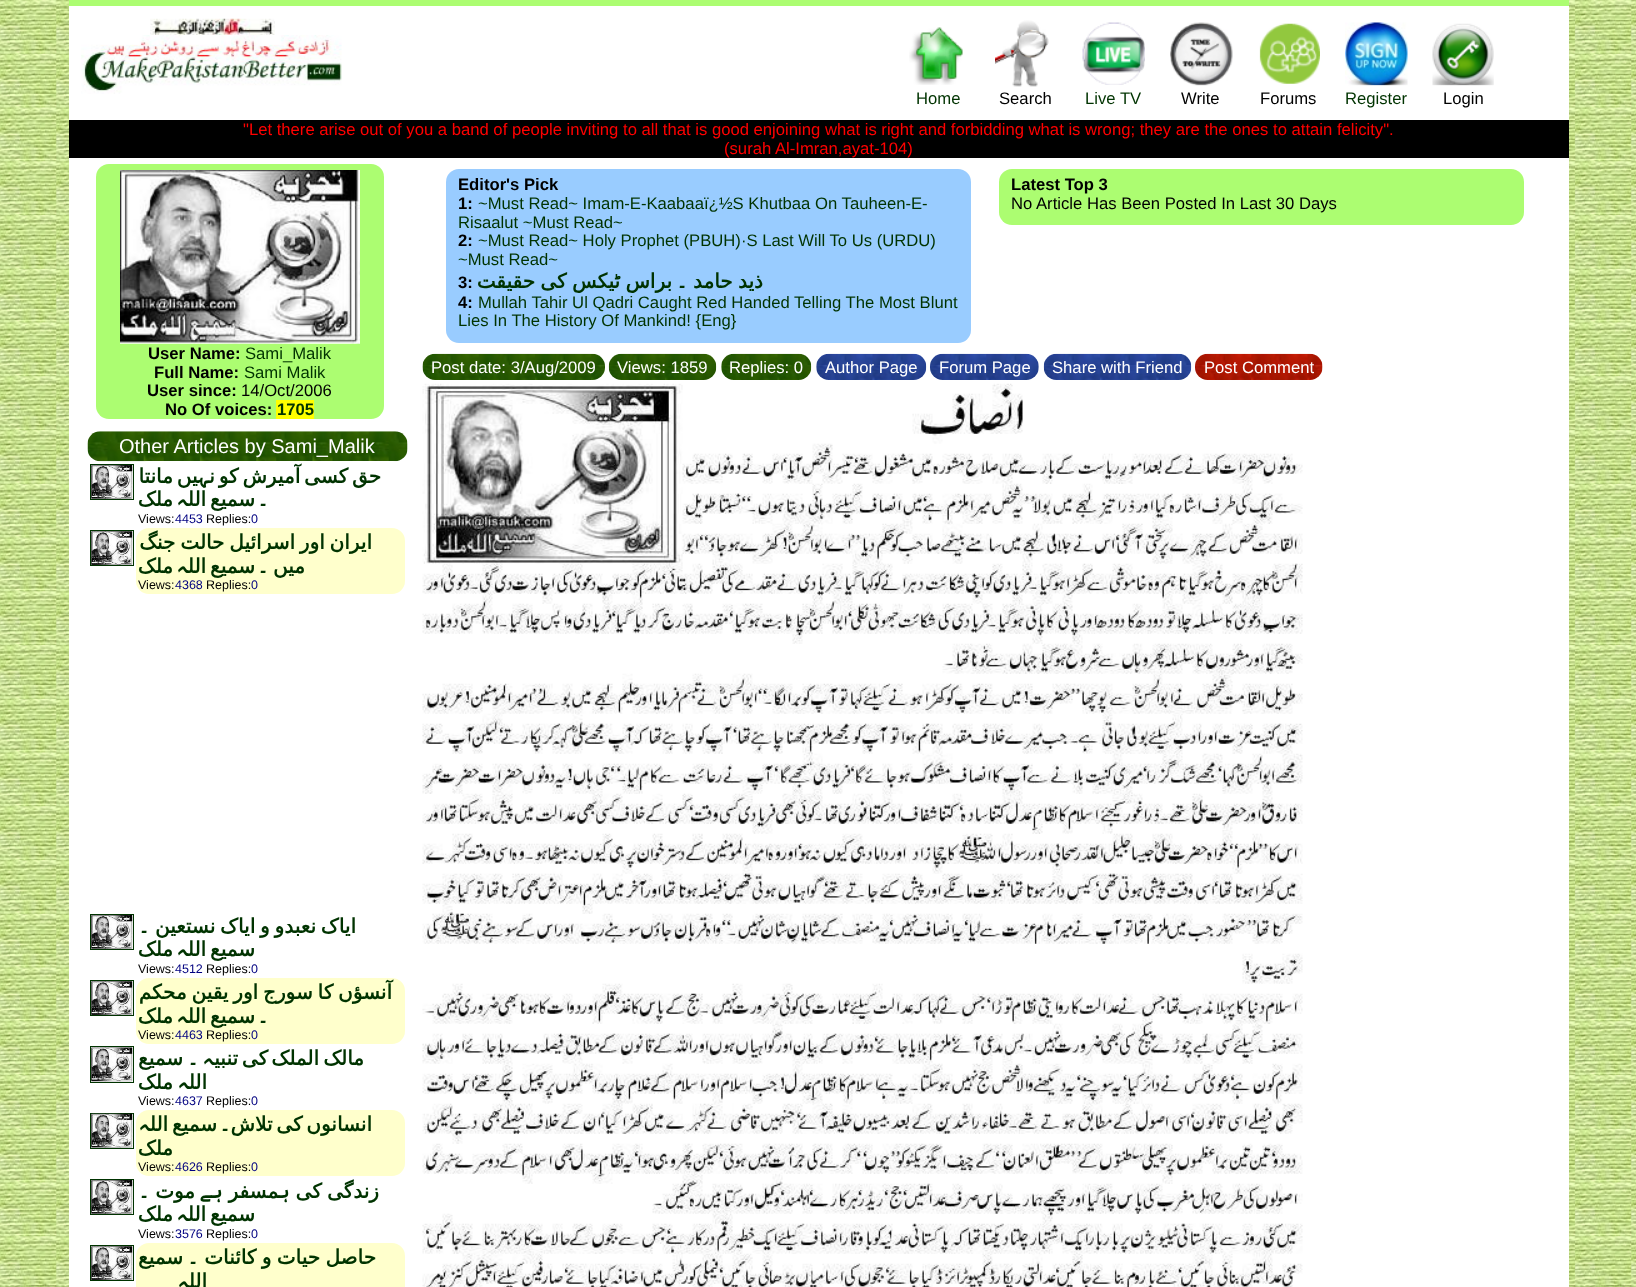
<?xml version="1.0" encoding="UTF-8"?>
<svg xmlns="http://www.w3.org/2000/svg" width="1636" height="1287">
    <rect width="100%" height="100%" fill="#FFFFFF"/>
    <image x="0" y="0" width="1636" height="1287" href="img_01.png"/>
    <rect x="69" y="6" width="1500" height="1281" fill="#FFFFFF"/>
    <rect x="69" y="0" width="1500" height="6" fill="#ACFD71"/>
    <image x="150" y="18" width="125" height="17" href="img_02.png"/>
    <image x="81" y="35" width="261" height="59" href="img_03.png"/>
    <image x="909" y="27" width="54" height="58" href="img_04.png"/>
    <text x="916" y="104" font-family="Liberation Sans" font-size="16.67" fill="#003300">Home</text>
    <image x="995" y="20" width="54" height="67" href="img_05.png"/>
    <text x="999" y="104" font-family="Liberation Sans" font-size="16.67" fill="#000000">Search</text>
    <image x="1082" y="22" width="63" height="63" href="img_06.png"/>
    <text x="1085" y="104" font-family="Liberation Sans" font-size="16.67" fill="#003300">Live TV</text>
    <image x="1170" y="22" width="63" height="64" href="img_07.png"/>
    <text x="1181" y="104" font-family="Liberation Sans" font-size="16.67" fill="#000000">Write</text>
    <image x="1259" y="23" width="61" height="61" href="img_08.png"/>
    <text x="1260" y="104" font-family="Liberation Sans" font-size="16.67" fill="#000000">Forums</text>
    <image x="1345" y="22" width="63" height="64" href="img_09.png"/>
    <text x="1345" y="104" font-family="Liberation Sans" font-size="16.67" fill="#003300">Register</text>
    <image x="1432" y="23" width="62" height="63" href="img_10.png"/>
    <text x="1443" y="104" font-family="Liberation Sans" font-size="16.67" fill="#000000">Login</text>
    <rect x="69" y="120" width="1500" height="38" fill="#000000"/>
    <text x="243" y="135" font-family="Liberation Sans" font-size="16.67" fill="#FF0000">"Let there arise out of you a band of people inviting to all that is good enjoining what is right and forbidding what is wrong; they are the ones to attain felicity".</text>
    <text x="724" y="154" font-family="Liberation Sans" font-size="16.67" fill="#FF0000">(surah Al-Imran,ayat-104)</text>
    <rect x="446" y="169" width="525" height="174" rx="13" fill="#99CCFF"/>
    <text font-family="Liberation Sans" font-size="16.67" font-weight="700" fill="#000000">
        <tspan x="458" y="190">Editor's Pick</tspan>
        <tspan x="458" y="209">1:</tspan>
    </text>
    <text x="478" y="209" font-family="Liberation Sans" font-size="16.67" fill="#003300">~Must Read~ Imam-E-Kaabaaï¿½S Khutbaa On Tauheen-E-</text>
    <text x="458" y="228" font-family="Liberation Sans" font-size="16.67" fill="#003300">Risaalut ~Must Read~</text>
    <text x="458" y="246" font-family="Liberation Sans" font-size="16.67" font-weight="700" fill="#000000">2:</text>
    <text x="478" y="246" font-family="Liberation Sans" font-size="16.67" fill="#003300">~Must Read~ Holy Prophet (PBUH)·S Last Will To Us (URDU)</text>
    <text x="458" y="265" font-family="Liberation Sans" font-size="16.67" fill="#003300">~Must Read~</text>
    <text x="458" y="288" font-family="Liberation Sans" font-size="16.67" font-weight="700" fill="#000000">3:</text>
    <text x="672" y="288" word-spacing="-1" font-family="DejaVu Sans" font-size="20" font-weight="700" direction="rtl" fill="#003300">براس ٹیکس کی حقیقت</text>
    <text x="688" y="288" font-family="Cascadia Code" font-size="20" font-weight="700" direction="rtl" fill="#003300">۔</text>
    <text x="763" y="288" word-spacing="-1" font-family="DejaVu Sans" font-size="20" font-weight="700" direction="rtl" fill="#003300">ذید حامد</text>
    <text x="458" y="308" font-family="Liberation Sans" font-size="16.67" font-weight="700" fill="#000000">4:</text>
    <text x="478" y="308" font-family="Liberation Sans" font-size="16.67" fill="#003300">Mullah Tahir Ul Qadri Caught Red Handed Telling The Most Blunt</text>
    <text x="458" y="326" font-family="Liberation Sans" font-size="16.67" fill="#003300">Lies In The History Of Mankind! {Eng}</text>
    <rect x="999" y="169" width="525" height="56" rx="13" fill="#ACFD71"/>
    <text x="1011" y="190" font-family="Liberation Sans" font-size="16.67" font-weight="700" fill="#000000">Latest Top 3</text>
    <text x="1011" y="209" font-family="Liberation Sans" font-size="16.67" fill="#000000">No Article Has Been Posted In Last 30 Days</text>
    <image x="422" y="353" width="183" height="27" href="img_11.png"/>
    <text x="431" y="373" font-family="Liberation Sans" font-size="16.67" fill="#FFFFFF">Post date: 3/Aug/2009</text>
    <image x="608" y="353" width="109" height="27" href="img_12.png"/>
    <text x="617" y="373" font-family="Liberation Sans" font-size="16.67" fill="#FFFFFF">Views: 1859</text>
    <image x="721" y="353" width="91" height="27" href="img_13.png"/>
    <text x="729" y="373" font-family="Liberation Sans" font-size="16.67" fill="#FFFFFF">Replies: 0</text>
    <image x="816" y="353" width="111" height="27" href="img_14.png"/>
    <text x="825" y="373" font-family="Liberation Sans" font-size="16.67" fill="#FFFFFF">Author Page</text>
    <image x="930" y="353" width="109" height="27" href="img_15.png"/>
    <text x="939" y="373" font-family="Liberation Sans" font-size="16.67" fill="#FFFFFF">Forum Page</text>
    <image x="1043" y="353" width="149" height="27" href="img_16.png"/>
    <text x="1052" y="373" font-family="Liberation Sans" font-size="16.67" fill="#FFFFFF">Share with Friend</text>
    <image x="1195" y="353" width="128" height="27" href="img_17.png"/>
    <text x="1204" y="373" font-family="Liberation Sans" font-size="16.67" fill="#FFFFFF">Post Comment</text>
    <image x="422" y="383" width="881" height="904" href="img_18.png"/>
    <rect x="96" y="164" width="288" height="255" rx="13" fill="#ACFD71"/>
    <image x="120" y="170" width="240" height="174" href="img_19.png"/>
    <text x="148" y="359" font-family="Liberation Sans" font-size="16.67" font-weight="700" fill="#000000">User Name:</text>
    <text x="245" y="359" font-family="Liberation Sans" font-size="16.67" fill="#003300">Sami_Malik</text>
    <text x="154" y="378" font-family="Liberation Sans" font-size="16.67" font-weight="700" fill="#000000">Full Name:</text>
    <text x="244" y="378" font-family="Liberation Sans" font-size="16.67" fill="#003300">Sami Malik</text>
    <text x="147" y="396" font-family="Liberation Sans" font-size="16.67" font-weight="700" fill="#000000">User since:</text>
    <text x="241" y="396" font-family="Liberation Sans" font-size="16.67" fill="#000000">14/Oct/2006</text>
    <text x="165" y="415" font-family="Liberation Sans" font-size="16.67" font-weight="700" fill="#000000">No Of voices:</text>
    <rect x="276" y="400" width="38" height="19" fill="#FFFF00"/>
    <text x="277" y="415" font-family="Liberation Sans" font-size="16.67" font-weight="700" fill="#003300">1705</text>
    <image x="87" y="431" width="321" height="31" href="img_20.png"/>
    <text x="119" y="453" font-family="Liberation Sans" font-size="20" fill="#FFFFFF">Other Articles by Sami_Malik</text>
    <rect x="90.5" y="464.5" width="43" height="35" fill="none" stroke="#003300"/>
    <image x="91" y="465" width="42" height="34" href="img_21.png"/>
    <rect x="136" y="461" width="269" height="67" rx="13" fill="#FFFFFF"/>
    <text x="198" y="483" word-spacing="-2.5" font-family="DejaVu Sans" font-size="20" font-weight="700" direction="rtl" fill="#003300">‍یں مانتا</text>
    <text x="209" y="483" font-family="Cascadia Code" font-size="20" font-weight="700" direction="rtl" fill="#003300">‍ہ‍</text>
    <text x="381" y="483" word-spacing="-2.5" font-family="DejaVu Sans" font-size="20" font-weight="700" direction="rtl" fill="#003300">حق کسی آمیرش کو ن‍</text>
    <text x="173" y="506" font-family="DejaVu Sans" font-size="20" font-weight="700" direction="rtl" fill="#003300">ملک</text>
    <text x="188" y="506" font-family="Cascadia Code" font-size="20" font-weight="700" direction="rtl" fill="#003300">‍ہ</text>
    <text x="255" y="506" word-spacing="-2.5" font-family="DejaVu Sans" font-size="20" font-weight="700" direction="rtl" fill="#003300">سمیع الل‍</text>
    <text x="269" y="506" font-family="Cascadia Code" font-size="20" font-weight="700" direction="rtl" fill="#003300">۔</text>
    <text x="138" y="523" font-family="Liberation Sans" font-size="12.5" fill="#000000">Views:</text>
    <text x="175" y="523" font-family="Liberation Sans" font-size="12.5" fill="#000080">4453</text>
    <text x="206" y="523" font-family="Liberation Sans" font-size="12.5" fill="#000000">Replies:</text>
    <text x="251" y="523" font-family="Liberation Sans" font-size="12.5" fill="#000080">0</text>
    <rect x="90.5" y="530.5" width="43" height="35" fill="none" stroke="#003300"/>
    <image x="91" y="531" width="42" height="34" href="img_22.png"/>
    <rect x="136" y="528" width="269" height="66" rx="13" fill="#FFFFCC"/>
    <text x="372" y="549" word-spacing="-1.5" font-family="DejaVu Sans" font-size="20" font-weight="700" direction="rtl" fill="#003300">ایران اور اسرائیل حالت جنگ</text>
    <text x="173" y="573" font-family="DejaVu Sans" font-size="20" font-weight="700" direction="rtl" fill="#003300">ملک</text>
    <text x="188" y="573" font-family="Cascadia Code" font-size="20" font-weight="700" direction="rtl" fill="#003300">‍ہ</text>
    <text x="255" y="573" word-spacing="-2.5" font-family="DejaVu Sans" font-size="20" font-weight="700" direction="rtl" fill="#003300">سمیع الل‍</text>
    <text x="269" y="573" font-family="Cascadia Code" font-size="20" font-weight="700" direction="rtl" fill="#003300">۔</text>
    <text x="305" y="573" font-family="DejaVu Sans" font-size="20" font-weight="700" direction="rtl" fill="#003300">میں</text>
    <text x="138" y="589" font-family="Liberation Sans" font-size="12.5" fill="#000000">Views:</text>
    <text x="175" y="589" font-family="Liberation Sans" font-size="12.5" fill="#000080">4368</text>
    <text x="206" y="589" font-family="Liberation Sans" font-size="12.5" fill="#000000">Replies:</text>
    <text x="251" y="589" font-family="Liberation Sans" font-size="12.5" fill="#000080">0</text>
    <rect x="90.5" y="914.5" width="43" height="35" fill="none" stroke="#003300"/>
    <image x="91" y="915" width="42" height="34" href="img_21.png"/>
    <text x="150" y="933" font-family="Cascadia Code" font-size="20" font-weight="700" direction="rtl" fill="#003300">۔</text>
    <text x="356" y="933" word-spacing="-1.5" font-family="DejaVu Sans" font-size="20" font-weight="700" direction="rtl" fill="#003300">ایاک نعبدو و ایاک نستعین</text>
    <text x="173" y="956" font-family="DejaVu Sans" font-size="20" font-weight="700" direction="rtl" fill="#003300">ملک</text>
    <text x="188" y="956" font-family="Cascadia Code" font-size="20" font-weight="700" direction="rtl" fill="#003300">‍ہ</text>
    <text x="255" y="956" word-spacing="-2.5" font-family="DejaVu Sans" font-size="20" font-weight="700" direction="rtl" fill="#003300">سمیع الل‍</text>
    <text x="138" y="973" font-family="Liberation Sans" font-size="12.5" fill="#000000">Views:</text>
    <text x="175" y="973" font-family="Liberation Sans" font-size="12.5" fill="#000080">4512</text>
    <text x="206" y="973" font-family="Liberation Sans" font-size="12.5" fill="#000000">Replies:</text>
    <text x="251" y="973" font-family="Liberation Sans" font-size="12.5" fill="#000080">0</text>
    <rect x="90.5" y="980.5" width="43" height="35" fill="none" stroke="#003300"/>
    <image x="91" y="981" width="42" height="34" href="img_22.png"/>
    <rect x="136" y="978" width="269" height="66" rx="13" fill="#FFFFCC"/>
    <text x="392" y="999" word-spacing="-1.5" font-family="DejaVu Sans" font-size="20" font-weight="700" direction="rtl" fill="#003300">آنسؤں کا سورج اور یقین محکم</text>
    <text x="173" y="1023" font-family="DejaVu Sans" font-size="20" font-weight="700" direction="rtl" fill="#003300">ملک</text>
    <text x="188" y="1023" font-family="Cascadia Code" font-size="20" font-weight="700" direction="rtl" fill="#003300">‍ہ</text>
    <text x="255" y="1023" word-spacing="-2.5" font-family="DejaVu Sans" font-size="20" font-weight="700" direction="rtl" fill="#003300">سمیع الل‍</text>
    <text x="269" y="1023" font-family="Cascadia Code" font-size="20" font-weight="700" direction="rtl" fill="#003300">۔</text>
    <text x="138" y="1039" font-family="Liberation Sans" font-size="12.5" fill="#000000">Views:</text>
    <text x="175" y="1039" font-family="Liberation Sans" font-size="12.5" fill="#000080">4463</text>
    <text x="206" y="1039" font-family="Liberation Sans" font-size="12.5" fill="#000000">Replies:</text>
    <text x="251" y="1039" font-family="Liberation Sans" font-size="12.5" fill="#000080">0</text>
    <rect x="90.5" y="1046.5" width="43" height="36" fill="none" stroke="#003300"/>
    <image x="91" y="1047" width="42" height="35" href="img_23.png"/>
    <text x="183" y="1065" font-family="DejaVu Sans" font-size="20" font-weight="700" direction="rtl" fill="#003300">سمیع</text>
    <text x="199" y="1065" font-family="Cascadia Code" font-size="20" font-weight="700" direction="rtl" fill="#003300">۔</text>
    <text x="214" y="1065" font-family="Cascadia Code" font-size="20" font-weight="700" direction="rtl" fill="#003300">‍ہ</text>
    <text x="238" y="1065" font-family="DejaVu Sans" font-size="20" font-weight="700" direction="rtl" fill="#003300">تنبی‍</text>
    <text x="268" y="1065" font-family="DejaVu Sans" font-size="20" font-weight="700" direction="rtl" fill="#003300">کی</text>
    <text x="319" y="1065" font-family="DejaVu Sans" font-size="20" font-weight="700" direction="rtl" fill="#003300">الملک</text>
    <text x="364" y="1065" font-family="DejaVu Sans" font-size="20" font-weight="700" direction="rtl" fill="#003300">مالک</text>
    <text x="173" y="1089" font-family="DejaVu Sans" font-size="20" font-weight="700" direction="rtl" fill="#003300">ملک</text>
    <text x="189" y="1089" font-family="Cascadia Code" font-size="20" font-weight="700" direction="rtl" fill="#003300">‍ہ</text>
    <text x="207" y="1089" font-family="DejaVu Sans" font-size="20" font-weight="700" direction="rtl" fill="#003300">الل‍</text>
    <text x="138" y="1105" font-family="Liberation Sans" font-size="12.5" fill="#000000">Views:</text>
    <text x="175" y="1105" font-family="Liberation Sans" font-size="12.5" fill="#000080">4637</text>
    <text x="206" y="1105" font-family="Liberation Sans" font-size="12.5" fill="#000000">Replies:</text>
    <text x="251" y="1105" font-family="Liberation Sans" font-size="12.5" fill="#000080">0</text>
    <rect x="90.5" y="1113.5" width="43" height="35" fill="none" stroke="#003300"/>
    <image x="91" y="1113" width="42" height="35" href="img_24.png"/>
    <rect x="136" y="1110" width="269" height="66" rx="13" fill="#FFFFCC"/>
    <text x="150" y="1131" font-family="Cascadia Code" font-size="20" font-weight="700" direction="rtl" fill="#003300">‍ہ</text>
    <text x="217" y="1131" word-spacing="-2.5" font-family="DejaVu Sans" font-size="20" font-weight="700" direction="rtl" fill="#003300">سمیع الل‍</text>
    <text x="231" y="1131" font-family="Cascadia Code" font-size="20" font-weight="700" direction="rtl" fill="#003300">۔</text>
    <text x="372" y="1131" word-spacing="-2.5" font-family="DejaVu Sans" font-size="20" font-weight="700" direction="rtl" fill="#003300">انسانوں کی تلاش</text>
    <text x="173" y="1155" font-family="DejaVu Sans" font-size="20" font-weight="700" direction="rtl" fill="#003300">ملک</text>
    <text x="138" y="1171" font-family="Liberation Sans" font-size="12.5" fill="#000000">Views:</text>
    <text x="175" y="1171" font-family="Liberation Sans" font-size="12.5" fill="#000080">4626</text>
    <text x="206" y="1171" font-family="Liberation Sans" font-size="12.5" fill="#000000">Replies:</text>
    <text x="251" y="1171" font-family="Liberation Sans" font-size="12.5" fill="#000080">0</text>
    <rect x="90.5" y="1179.5" width="43" height="35" fill="none" stroke="#003300"/>
    <image x="91" y="1180" width="42" height="34" href="img_21.png"/>
    <text x="150" y="1198" font-family="Cascadia Code" font-size="20" font-weight="700" direction="rtl" fill="#003300">۔</text>
    <text x="195" y="1198" font-family="DejaVu Sans" font-size="20" font-weight="700" direction="rtl" fill="#003300">موت</text>
    <text x="223" y="1198" font-family="Cascadia Code" font-size="20" font-weight="700" direction="rtl" fill="#003300">ہے</text>
    <text x="279" y="1198" font-family="DejaVu Sans" font-size="20" font-weight="700" direction="rtl" fill="#003300">‍مسفر</text>
    <text x="290" y="1198" font-family="Cascadia Code" font-size="20" font-weight="700" direction="rtl" fill="#003300">ہ‍</text>
    <text x="379" y="1198" word-spacing="-1" font-family="DejaVu Sans" font-size="20" font-weight="700" direction="rtl" fill="#003300">زندگی کی</text>
    <text x="173" y="1221" font-family="DejaVu Sans" font-size="20" font-weight="700" direction="rtl" fill="#003300">ملک</text>
    <text x="188" y="1221" font-family="Cascadia Code" font-size="20" font-weight="700" direction="rtl" fill="#003300">‍ہ</text>
    <text x="255" y="1221" word-spacing="-2.5" font-family="DejaVu Sans" font-size="20" font-weight="700" direction="rtl" fill="#003300">سمیع الل‍</text>
    <text x="138" y="1238" font-family="Liberation Sans" font-size="12.5" fill="#000000">Views:</text>
    <text x="175" y="1238" font-family="Liberation Sans" font-size="12.5" fill="#000080">3576</text>
    <text x="206" y="1238" font-family="Liberation Sans" font-size="12.5" fill="#000000">Replies:</text>
    <text x="251" y="1238" font-family="Liberation Sans" font-size="12.5" fill="#000080">0</text>
    <rect x="90.5" y="1245.5" width="43" height="35" fill="none" stroke="#003300"/>
    <image x="91" y="1246" width="42" height="34" href="img_22.png"/>
    <rect x="136" y="1243" width="269" height="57" rx="13" fill="#FFFFCC"/>
    <text x="183" y="1264" font-family="DejaVu Sans" font-size="20" font-weight="700" direction="rtl" fill="#003300">سمیع</text>
    <text x="199" y="1264" font-family="Cascadia Code" font-size="20" font-weight="700" direction="rtl" fill="#003300">۔</text>
    <text x="376" y="1264" word-spacing="-1" font-family="DejaVu Sans" font-size="20" font-weight="700" direction="rtl" fill="#003300">حاصل حیات و کائنات</text>
    <text x="189" y="1288" font-family="Cascadia Code" font-size="20" font-weight="700" direction="rtl" fill="#003300">‍ہ</text>
    <text x="207" y="1288" font-family="DejaVu Sans" font-size="20" font-weight="700" direction="rtl" fill="#003300">الل‍</text>
</svg>
